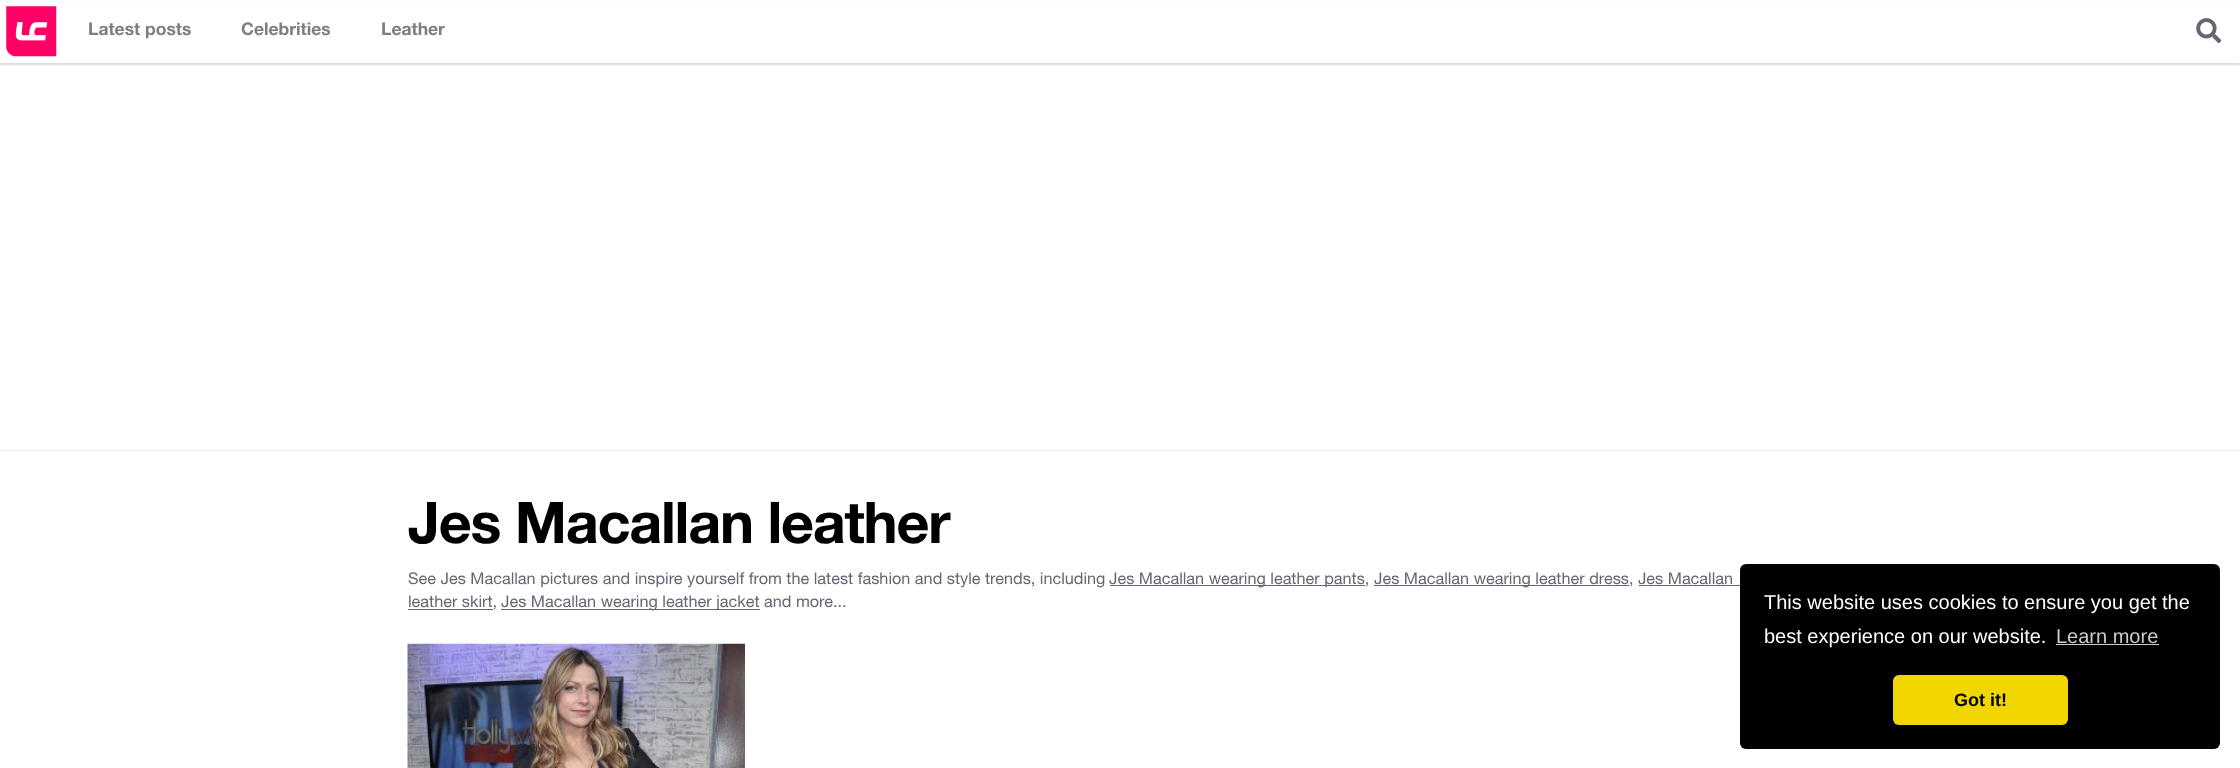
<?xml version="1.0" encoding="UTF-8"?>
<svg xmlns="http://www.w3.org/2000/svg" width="2240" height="768">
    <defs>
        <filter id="blur1" x="-50%" y="-200%" width="200%" height="500%"><feGaussianBlur stdDeviation="1"/></filter>
    </defs>
    <rect width="100%" height="100%" fill="#FFFFFF"/>
    <rect x="0" y="3" width="2240" height="62" fill="#444444" fill-opacity="0.2" filter="url(#blur1)"/>
    <rect x="0" y="2" width="2240" height="61" fill="#FFFFFF"/>
    <image x="6" y="6" width="51" height="51" href="img_01.png"/>
    <text x="88" y="35" font-family="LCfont" font-size="17.5" font-weight="700" fill="#7C7E83">Latest posts</text>
    <text x="241" y="35" font-family="LCfont" font-size="17.5" font-weight="700" fill="#7C7E83">Celebrities</text>
    <text x="381" y="35" font-family="LCfont" font-size="17.5" font-weight="700" fill="#7C7E83">Leather</text>
    <image x="2196" y="18" width="26" height="26" href="img_02.png"/>
    <rect x="0" y="450" width="2240" height="1" fill="#EFEFEF"/>
    <text x="408" y="543" font-family="LCfont" font-size="57.5" font-weight="700" letter-spacing="-1.25" fill="#000000">Jes Macallan leather</text>
    <text x="408" y="584" font-family="LCfont" font-size="16.25" fill="#636772">See Jes Macallan pictures and inspire yourself from the latest fashion and style trends, including</text>
    <rect x="1110" y="585" width="255" height="1" fill="#636772"/>
    <text x="1109" y="584" font-family="LCfont" font-size="16.25" fill="#636772">Jes Macallan wearing leather pants,</text>
    <rect x="1374" y="585" width="255" height="1" fill="#636772"/>
    <text x="1374" y="584" font-family="LCfont" font-size="16.25" fill="#636772">Jes Macallan wearing leather dress, Jes Macallan</text>
    <rect x="408" y="609" width="85" height="1" fill="#636772"/>
    <text x="408" y="607" font-family="LCfont" font-size="16.25" fill="#636772">leather skirt,</text>
    <rect x="1639" y="585" width="101" height="1" fill="#636772"/>
    <rect x="501" y="609" width="259" height="1" fill="#636772"/>
    <text x="501" y="607" font-family="LCfont" font-size="16.25" fill="#636772">Jes Macallan wearing leather jacket and more...</text>
    <image x="407" y="643" width="338" height="125" href="img_03.png"/>
    <rect x="1740" y="564" width="480" height="185" rx="6" fill="#000000"/>
    <text font-family="Liberation Sans" font-size="20" fill="#FFFFFF">
        <tspan x="1764" y="609">This website uses cookies to ensure you get the</tspan>
        <tspan x="1764" y="643">best experience on our website.</tspan>
    </text>
    <text x="2056" y="643" font-family="Liberation Sans" font-size="20" fill="#CCCCCC">Learn more</text>
    <rect x="2056" y="644" width="103" height="1" fill="#CCCCCC"/>
    <rect x="1893" y="675" width="175" height="50" rx="6" fill="#F1D600"/>
    <text x="1954" y="706" font-family="Liberation Sans" font-size="18" font-weight="700" fill="#000000">Got it!</text>
</svg>
